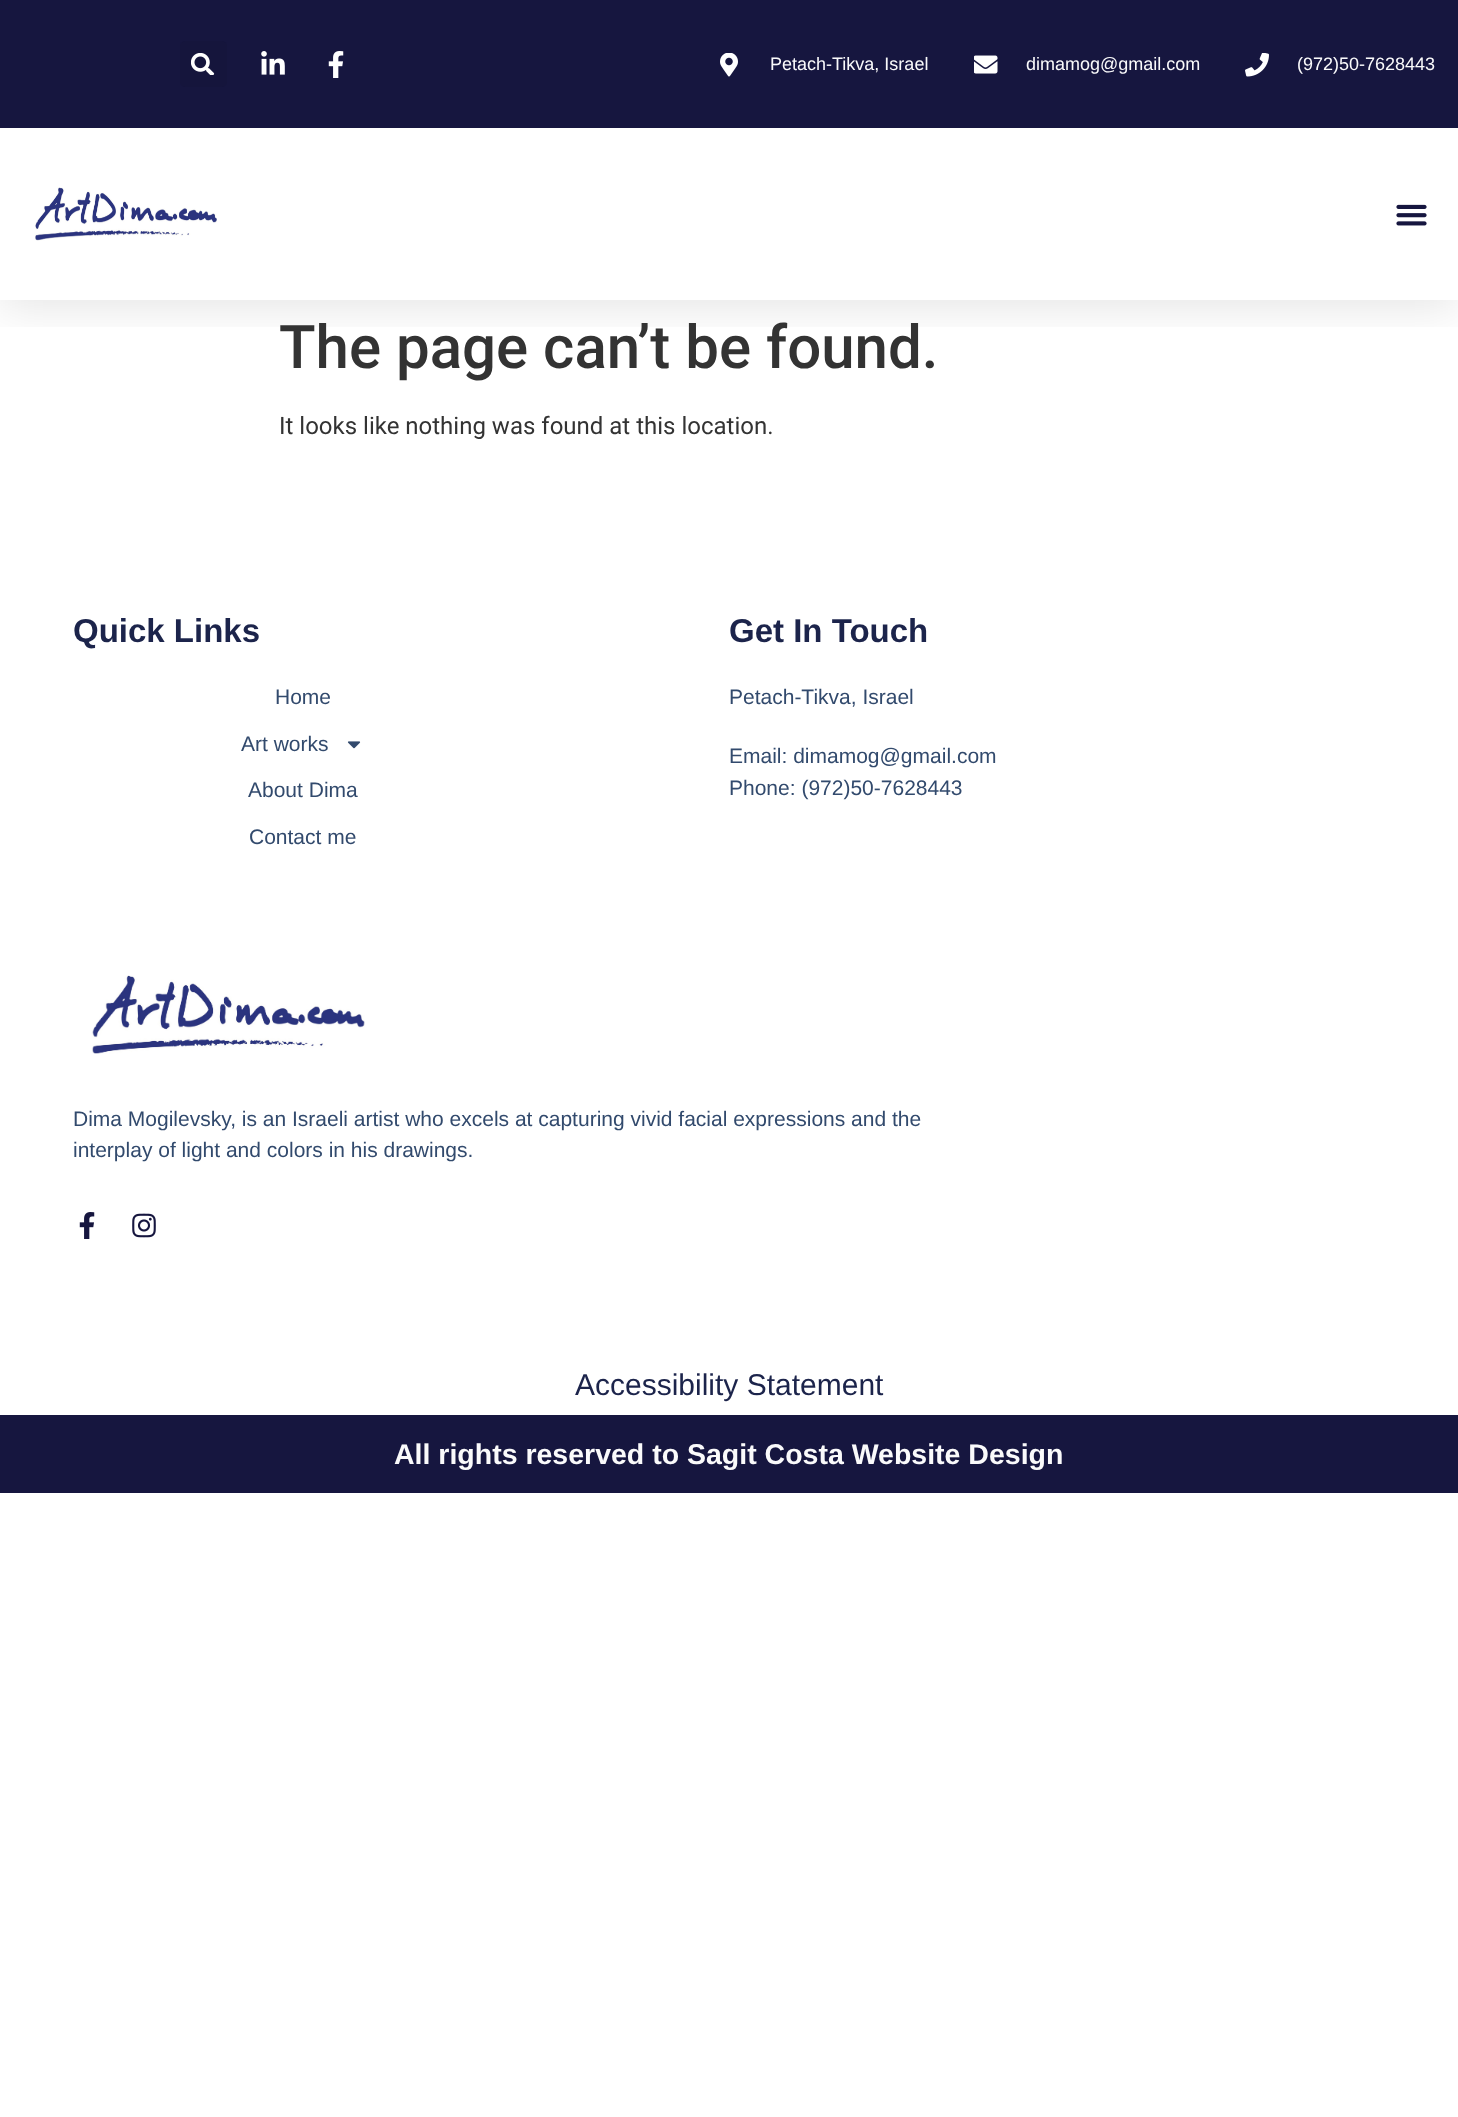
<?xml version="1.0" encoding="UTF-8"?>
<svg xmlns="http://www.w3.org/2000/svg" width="1458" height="2117">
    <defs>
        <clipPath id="clip1"><rect x="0" y="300" width="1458" height="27"/></clipPath>
        <filter id="blur1" x="-50%" y="-200%" width="200%" height="500%"><feGaussianBlur stdDeviation="22.5"/></filter>
    </defs>
    <rect width="100%" height="100%" fill="#FFFFFF"/>
    <g clip-path="url(#clip1)">
        <rect x="0" y="8" width="1458" height="300" fill="#000000" fill-opacity="0.1" filter="url(#blur1)"/>
    </g>
    <rect x="0" y="0" width="1458" height="128" fill="#16163F"/>
    <rect x="180" y="41" width="47" height="46" rx="5" fill="#15153C"/>
    <image x="191" y="53" width="24" height="22" href="img_01.png"/>
    <image x="261" y="51" width="24" height="24" href="img_02.png"/>
    <image x="328" y="51" width="16" height="27" href="img_03.png"/>
    <image x="720" y="53" width="18" height="24" href="img_04.png"/>
    <text x="770" y="70" font-family="Liberation Sans" font-size="18" fill="#FAFAFB">Petach-Tikva, Israel</text>
    <image x="974" y="55" width="24" height="19" href="img_05.png"/>
    <text x="1026" y="70" font-family="Liberation Sans" font-size="18" fill="#FAFAFB">dimamog@gmail.com</text>
    <image x="1245" y="53" width="24" height="24" href="img_06.png"/>
    <text x="1297" y="70" font-family="Liberation Sans" font-size="18" fill="#FAFAFB">(972)50-7628443</text>
    <image x="35" y="187" width="182" height="54" href="img_07.png"/>
    <image x="1396" y="204" width="31" height="22" href="img_08.png"/>
    <text x="279" y="368" font-family="Roboto" font-size="60" font-weight="500" fill="#333333">The page can’t be found.</text>
    <text x="279" y="434" font-family="Roboto" font-size="24" fill="#333333">It looks like nothing was found at this location.</text>
    <text x="73" y="642" font-family="Liberation Sans" font-size="33" font-weight="700" fill="#1C244B">Quick Links</text>
    <text x="275" y="704" font-family="Liberation Sans" font-size="21" fill="#324A6D">Home</text>
    <text x="241" y="751" font-family="Liberation Sans" font-size="21" fill="#324A6D">Art works</text>
    <image x="347" y="741" width="14" height="8" href="img_09.png"/>
    <text x="248" y="797" font-family="Liberation Sans" font-size="21" fill="#324A6D">About Dima</text>
    <text x="249" y="844" font-family="Liberation Sans" font-size="21" fill="#324A6D">Contact me</text>
    <text x="729" y="642" font-family="Liberation Sans" font-size="33" font-weight="700" fill="#1C244B">Get In Touch</text>
    <text x="729" y="704" font-family="Liberation Sans" font-size="21" fill="#324A6D">Petach-Tikva, Israel</text>
    <text font-family="Liberation Sans" font-size="21" fill="#324A6D">
        <tspan x="729" y="763">Email: dimamog@gmail.com</tspan>
        <tspan x="729" y="795">Phone: (972)50-7628443</tspan>
    </text>
    <image x="91" y="975" width="274" height="79" href="img_10.png"/>
    <text font-family="Liberation Sans" font-size="21" fill="#324A6D">
        <tspan x="73" y="1126">Dima Mogilevsky, is an Israeli artist who excels at capturing vivid facial expressions and the</tspan>
        <tspan x="73" y="1157">interplay of light and colors in his drawings.</tspan>
    </text>
    <image x="79" y="1212" width="16" height="27" href="img_11.png"/>
    <image x="132" y="1213" width="24" height="25" href="img_12.png"/>
    <text x="575" y="1395" font-family="Liberation Sans" font-size="30" fill="#1C244B">Accessibility Statement</text>
    <rect x="0" y="1415" width="1458" height="78" fill="#16163F"/>
    <text x="394" y="1464" font-family="Liberation Sans" font-size="28.5" font-weight="700" fill="#FAFAFB">All rights reserved to Sagit Costa Website Design</text>
</svg>
